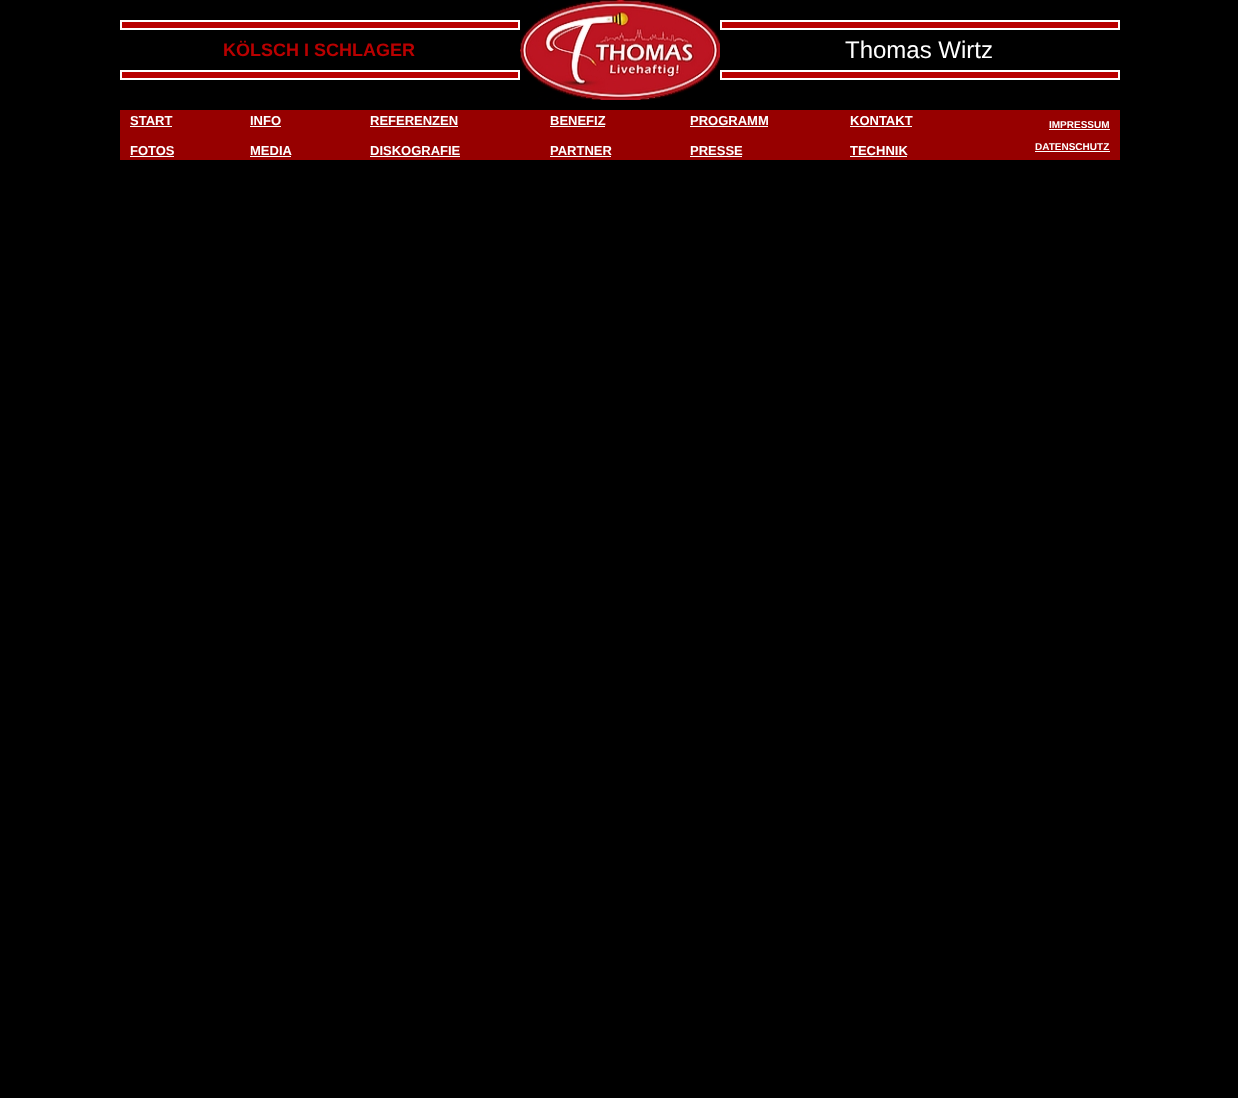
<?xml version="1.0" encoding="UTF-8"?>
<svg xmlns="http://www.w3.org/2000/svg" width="1238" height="1098">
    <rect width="100%" height="100%" fill="#000000"/>
    <image x="520" y="0" width="200" height="100" href="img_01.png"/>
    <rect x="120.5" y="20.5" width="399" height="9" fill="none" stroke="#FFFFFF"/>
    <rect x="121.5" y="21.5" width="397" height="7" fill="#B90000" stroke="#FFFFFF"/>
    <rect x="720.5" y="20.5" width="399" height="9" fill="none" stroke="#FFFFFF"/>
    <rect x="721.5" y="21.5" width="397" height="7" fill="#B90000" stroke="#FFFFFF"/>
    <text x="223" y="56" font-family="Liberation Sans" font-size="18" font-weight="700" fill="#B90000">KÖLSCH I SCHLAGER</text>
    <text x="845" y="58" font-family="Liberation Sans" font-size="24" fill="#FFFFFF">Thomas Wirtz</text>
    <rect x="120.5" y="70.5" width="399" height="9" fill="none" stroke="#FFFFFF"/>
    <rect x="121.5" y="71.5" width="397" height="7" fill="#B90000" stroke="#FFFFFF"/>
    <rect x="720.5" y="70.5" width="399" height="9" fill="none" stroke="#FFFFFF"/>
    <rect x="721.5" y="71.5" width="397" height="7" fill="#B90000" stroke="#FFFFFF"/>
    <rect x="120" y="110" width="10" height="50" fill="#970000"/>
    <rect x="130" y="110" width="890" height="30" fill="#970000"/>
    <text x="130" y="125" font-family="Liberation Sans" font-size="13" font-weight="700" fill="#FFFFFF">START</text>
    <rect x="130" y="126" width="42" height="1" fill="#FEFFFF"/>
    <text x="250" y="125" font-family="Liberation Sans" font-size="13" font-weight="700" fill="#FFFFFF">INFO</text>
    <rect x="250" y="126" width="31" height="1" fill="#FEFFFF"/>
    <text x="370" y="125" font-family="Liberation Sans" font-size="13" font-weight="700" fill="#FFFFFF">REFERENZEN</text>
    <rect x="370" y="126" width="88" height="1" fill="#FEFFFF"/>
    <text x="550" y="125" font-family="Liberation Sans" font-size="13" font-weight="700" fill="#FFFFFF">BENEFIZ</text>
    <rect x="550" y="126" width="55" height="1" fill="#FEFFFF"/>
    <text x="690" y="125" font-family="Liberation Sans" font-size="13" font-weight="700" fill="#FFFFFF">PROGRAMM</text>
    <rect x="690" y="126" width="78" height="1" fill="#FEFFFF"/>
    <text x="850" y="125" font-family="Liberation Sans" font-size="13" font-weight="700" fill="#FFFFFF">KONTAKT</text>
    <rect x="850" y="126" width="62" height="1" fill="#FEFFFF"/>
    <rect x="1020" y="110" width="100" height="50" fill="#970000"/>
    <text x="1049" y="128" font-family="Liberation Sans" font-size="10" font-weight="700" fill="#FFFFFF">IMPRESSUM</text>
    <rect x="1049" y="129" width="61" height="1" fill="#FEFFFF"/>
    <text x="1035" y="150" font-family="Liberation Sans" font-size="10" font-weight="700" fill="#FFFFFF">DATENSCHUTZ</text>
    <rect x="1035" y="151" width="75" height="1" fill="#FEFFFF"/>
    <rect x="130" y="140" width="890" height="20" fill="#970000"/>
    <text x="130" y="155" font-family="Liberation Sans" font-size="13" font-weight="700" fill="#FFFFFF">FOTOS</text>
    <rect x="130" y="156" width="44" height="1" fill="#FEFFFF"/>
    <text x="250" y="155" font-family="Liberation Sans" font-size="13" font-weight="700" fill="#FFFFFF">MEDIA</text>
    <rect x="250" y="156" width="41" height="1" fill="#FEFFFF"/>
    <text x="370" y="155" font-family="Liberation Sans" font-size="13" font-weight="700" fill="#FFFFFF">DISKOGRAFIE</text>
    <rect x="370" y="156" width="90" height="1" fill="#FEFFFF"/>
    <text x="550" y="155" font-family="Liberation Sans" font-size="13" font-weight="700" fill="#FFFFFF">PARTNER</text>
    <rect x="550" y="156" width="61" height="1" fill="#FEFFFF"/>
    <text x="690" y="155" font-family="Liberation Sans" font-size="13" font-weight="700" fill="#FFFFFF">PRESSE</text>
    <rect x="690" y="156" width="52" height="1" fill="#FEFFFF"/>
    <text x="850" y="155" font-family="Liberation Sans" font-size="13" font-weight="700" fill="#FFFFFF">TECHNIK</text>
    <rect x="850" y="156" width="57" height="1" fill="#FEFFFF"/>
</svg>
